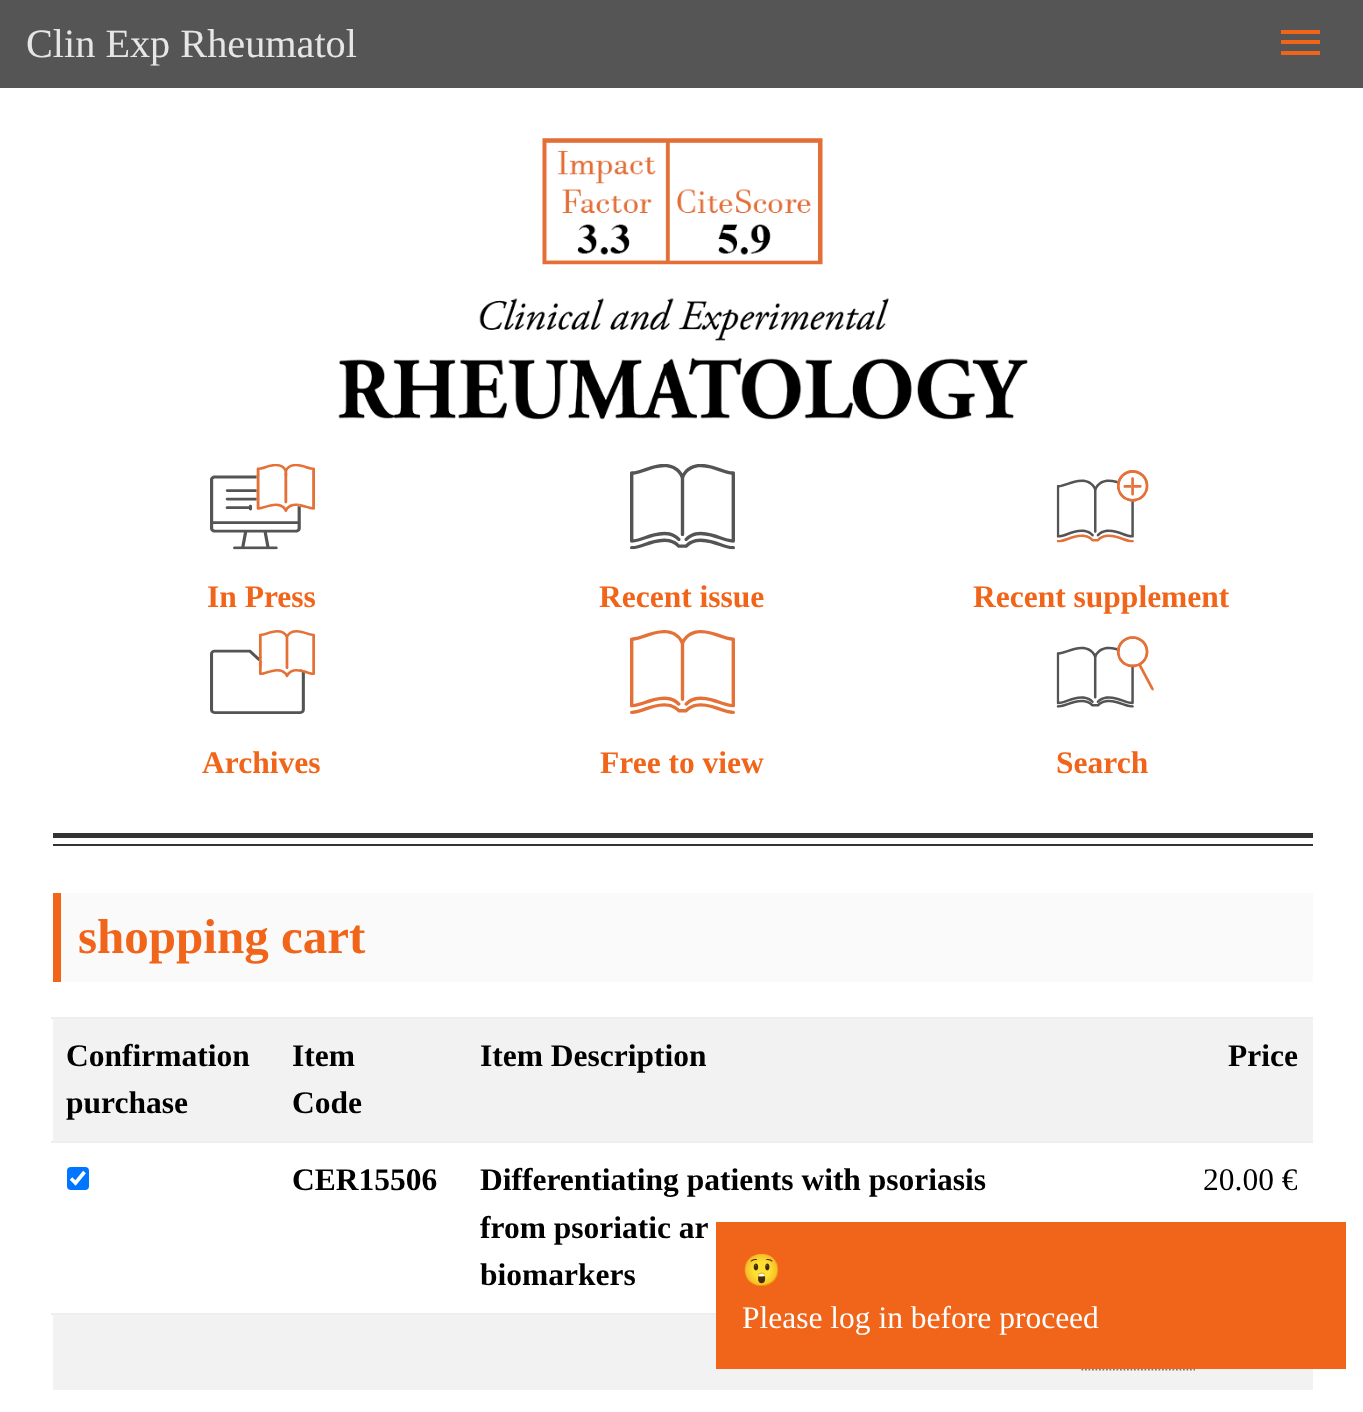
<?xml version="1.0" encoding="UTF-8"?>
<svg xmlns="http://www.w3.org/2000/svg" width="1363" height="1412">
    <rect width="100%" height="100%" fill="#FFFFFF"/>
    <rect x="0" y="0" width="1363" height="88" fill="#555555"/>
    <text x="26" y="57" font-family="Liberation Serif" font-size="40.25" fill="#E6E6E6">Clin Exp Rheumatol</text>
    <rect x="1281" y="30" width="39" height="4" fill="#F1651B"/>
    <rect x="1281" y="40" width="39" height="4" fill="#F1651B"/>
    <rect x="1281" y="51" width="39" height="4" fill="#F1651B"/>
    <image x="542" y="138" width="281" height="127" href="img_01.png"/>
    <image x="338" y="298" width="690" height="122" href="img_02.png"/>
    <image x="210" y="464" width="105" height="86" href="img_03.png"/>
    <text x="207" y="607" font-family="Liberation Serif" font-size="31.5" font-weight="700" fill="#F1651B">In Press</text>
    <image x="630" y="464" width="105" height="86" href="img_04.png"/>
    <text x="599" y="607" font-family="Liberation Serif" font-size="31.5" font-weight="700" fill="#F1651B">Recent issue</text>
    <image x="1056" y="470" width="93" height="73" href="img_05.png"/>
    <text x="973" y="607" font-family="Liberation Serif" font-size="31.5" font-weight="700" fill="#F1651B">Recent supplement</text>
    <image x="210" y="630" width="105" height="84" href="img_06.png"/>
    <text x="202" y="773" font-family="Liberation Serif" font-size="31.5" font-weight="700" fill="#F1651B">Archives</text>
    <image x="630" y="630" width="105" height="84" href="img_07.png"/>
    <text x="600" y="773" font-family="Liberation Serif" font-size="31.5" font-weight="700" fill="#F1651B">Free to view</text>
    <image x="1056" y="636" width="98" height="72" href="img_08.png"/>
    <text x="1056" y="773" font-family="Liberation Serif" font-size="31.5" font-weight="700" fill="#F1651B">Search</text>
    <rect x="53" y="833" width="1260" height="5" fill="#333333"/>
    <rect x="53" y="844" width="1260" height="2" fill="#333333"/>
    <rect x="61" y="893" width="1252" height="89" fill="#FAFAFA"/>
    <rect x="53" y="893" width="8" height="89" fill="#F1651B"/>
    <text x="78" y="953" font-family="Liberation Serif" font-size="49" font-weight="700" fill="#F1651B">shopping cart</text>
    <rect x="53" y="1019" width="1260" height="122" fill="#F2F2F2"/>
    <text font-family="Liberation Serif" font-size="31.5" font-weight="700" fill="#000000">
        <tspan x="66" y="1066">Confirmation</tspan>
        <tspan x="66" y="1113">purchase</tspan>
    </text>
    <text font-family="Liberation Serif" font-size="31.5" font-weight="700" fill="#000000">
        <tspan x="292" y="1066">Item</tspan>
        <tspan x="292" y="1113">Code</tspan>
    </text>
    <text x="480" y="1066" font-family="Liberation Serif" font-size="31.5" font-weight="700" fill="#000000">Item Description</text>
    <rect x="51" y="1017" width="1262" height="2" fill="#EEEEEE"/>
    <text x="1228" y="1066" font-family="Liberation Serif" font-size="31.5" font-weight="700" fill="#000000">Price</text>
    <rect x="67" y="1167" width="22" height="23" rx="4" fill="#0075FF"/>
    <path d="M 71 1178.5 L 75.5 1183 L 84.5 1172" fill="none" stroke="#FFFFFF" stroke-width="3.6"/>
    <text x="292" y="1190" font-family="Liberation Serif" font-size="31.5" font-weight="700" fill="#000000">CER15506</text>
    <text font-family="Liberation Serif" font-size="31.5" font-weight="700" fill="#000000">
        <tspan x="480" y="1190">Differentiating patients with psoriasis</tspan>
        <tspan x="480" y="1238">from psoriatic ar</tspan>
        <tspan x="480" y="1285">biomarkers</tspan>
    </text>
    <rect x="51" y="1141" width="1262" height="2" fill="#EEEEEE"/>
    <text x="1203" y="1190" font-family="Liberation Serif" font-size="31.5" fill="#000000">20.00 €</text>
    <rect x="53" y="1315" width="976" height="75" fill="#F2F2F2"/>
    <rect x="51" y="1313" width="665" height="2" fill="#EEEEEE"/>
    <rect x="1029" y="1369" width="284" height="21" fill="#F2F2F2"/>
    <path d="M 1081.5 1369.5 H 1195" fill="none" stroke="#777777" stroke-width="1.8" stroke-dasharray="1.75 1.75"/>
    <rect x="716" y="1222" width="630" height="147" fill="#F1651B"/>
    <text x="742" y="1281" font-family="Noto Color Emoji" font-size="31.5" font-weight="700" fill="#FFFFFF">😲</text>
    <text x="742" y="1328" font-family="Liberation Serif" font-size="31.5" fill="#FFFFFF">Please log in before proceed</text>
</svg>
